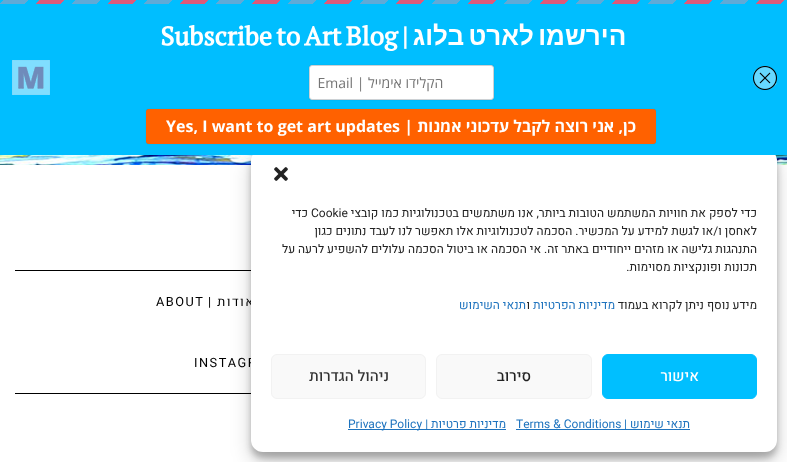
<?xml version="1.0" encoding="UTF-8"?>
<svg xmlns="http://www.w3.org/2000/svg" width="787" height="462">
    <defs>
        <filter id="blur1" x="-50%" y="-200%" width="200%" height="500%"><feGaussianBlur stdDeviation="3"/></filter>
        <filter id="blur2" x="-50%" y="-200%" width="200%" height="500%"><feGaussianBlur stdDeviation="10"/></filter>
    </defs>
    <rect width="100%" height="100%" fill="#FFFFFF"/>
    <image x="0" y="155" width="787" height="10" href="img_03.png"/>
    <rect x="15" y="270" width="236" height="1" fill="#000000"/>
    <rect x="15" y="393" width="236" height="1" fill="#000000"/>
    <rect x="251" y="155" width="526" height="303" rx="12" fill="#000000" fill-opacity="0.23" filter="url(#blur1)"/>
    <rect x="251" y="159" width="526" height="303" rx="12" fill="#000000" fill-opacity="0.19" filter="url(#blur2)"/>
    <text x="255" y="306" font-family="Heebo" font-size="12.75" letter-spacing="1.5" direction="rtl" fill="#000000">אודות |</text>
    <text x="194" y="367" font-family="Heebo" font-size="12.75" letter-spacing="1.5" fill="#000000">INSTAGR</text>
    <rect x="251" y="149" width="526" height="303" rx="12" fill="#FFFFFF"/>
    <image x="0" y="0" width="787" height="155" href="img_01.png"/>
    <image x="274" y="167" width="14" height="14" href="img_02.png"/>
    <text x="757" y="217" font-family="Heebo" font-size="12" direction="rtl" fill="#222222">כדי לספק את חוויות המשתמש הטובות ביותר, אנו משתמשים בטכנולוגיות כמו קובצי</text>
    <text x="311" y="217" font-family="Heebo" font-size="12" fill="#222222">Cookie</text>
    <text x="308" y="217" font-family="Heebo" font-size="12" direction="rtl" fill="#222222">כדי</text>
    <text font-family="Heebo" font-size="12" direction="rtl" fill="#222222">
        <tspan x="757" y="235">לאחסן ו/או לגשת למידע על המכשיר. הסכמה לטכנולוגיות אלו תאפשר לנו לעבד נתונים כגון</tspan>
        <tspan x="757" y="253">התנהגות גלישה או מזהים ייחודיים באתר זה. אי הסכמה או ביטול הסכמה עלולים להשפיע לרעה על</tspan>
        <tspan x="757" y="271">תכונות ופונקציות מסוימות.</tspan>
    </text>
    <text x="757" y="309" font-family="Heebo" font-size="12" direction="rtl" fill="#222222">מידע נוסף ניתן לקרוא בעמוד</text>
    <text x="615" y="309" font-family="Heebo" font-size="12" direction="rtl" fill="#1E73BE">מדיניות הפרטיות</text>
    <text x="530" y="309" font-family="Heebo" font-size="12" direction="rtl" fill="#222222">ו</text>
    <text x="526" y="309" font-family="Heebo" font-size="12" direction="rtl" fill="#1E73BE">תנאי השימוש</text>
    <rect x="602.5" y="354.5" width="154" height="44" rx="5.5" fill="#00BFFF" stroke="#00BFFF"/>
    <text x="699" y="381" font-family="Heebo" font-size="15" font-weight="500" direction="rtl" fill="#FFFFFF">אישור</text>
    <rect x="436.5" y="354.5" width="155" height="44" rx="5.5" fill="#F9F9F9" stroke="#F2F2F2"/>
    <text x="531" y="381" font-family="Heebo" font-size="15" font-weight="500" direction="rtl" fill="#222222">סירוב</text>
    <rect x="271.5" y="354.5" width="154" height="44" rx="5.5" fill="#F9F9F9" stroke="#F2F2F2"/>
    <text x="389" y="381" font-family="Heebo" font-size="15" font-weight="500" direction="rtl" fill="#333333">ניהול הגדרות</text>
    <rect x="516" y="429" width="174" height="1" fill="#1E73BE"/>
    <text x="690" y="428" font-family="Heebo" font-size="12" direction="rtl" fill="#1E73BE">תנאי שימוש |</text>
    <text x="516" y="428" font-family="Heebo" font-size="12" fill="#1E73BE">Terms &amp; Conditions</text>
    <rect x="348" y="429" width="158" height="1" fill="#1E73BE"/>
    <text x="506" y="428" font-family="Heebo" font-size="12" direction="rtl" fill="#1E73BE">מדיניות פרטיות |</text>
    <text x="348" y="428" font-family="Heebo" font-size="12" fill="#1E73BE">Privacy Policy</text>
    <text x="156" y="306" font-family="Heebo" font-size="12.75" letter-spacing="1.5" fill="#000000">ABOUT</text>
</svg>
